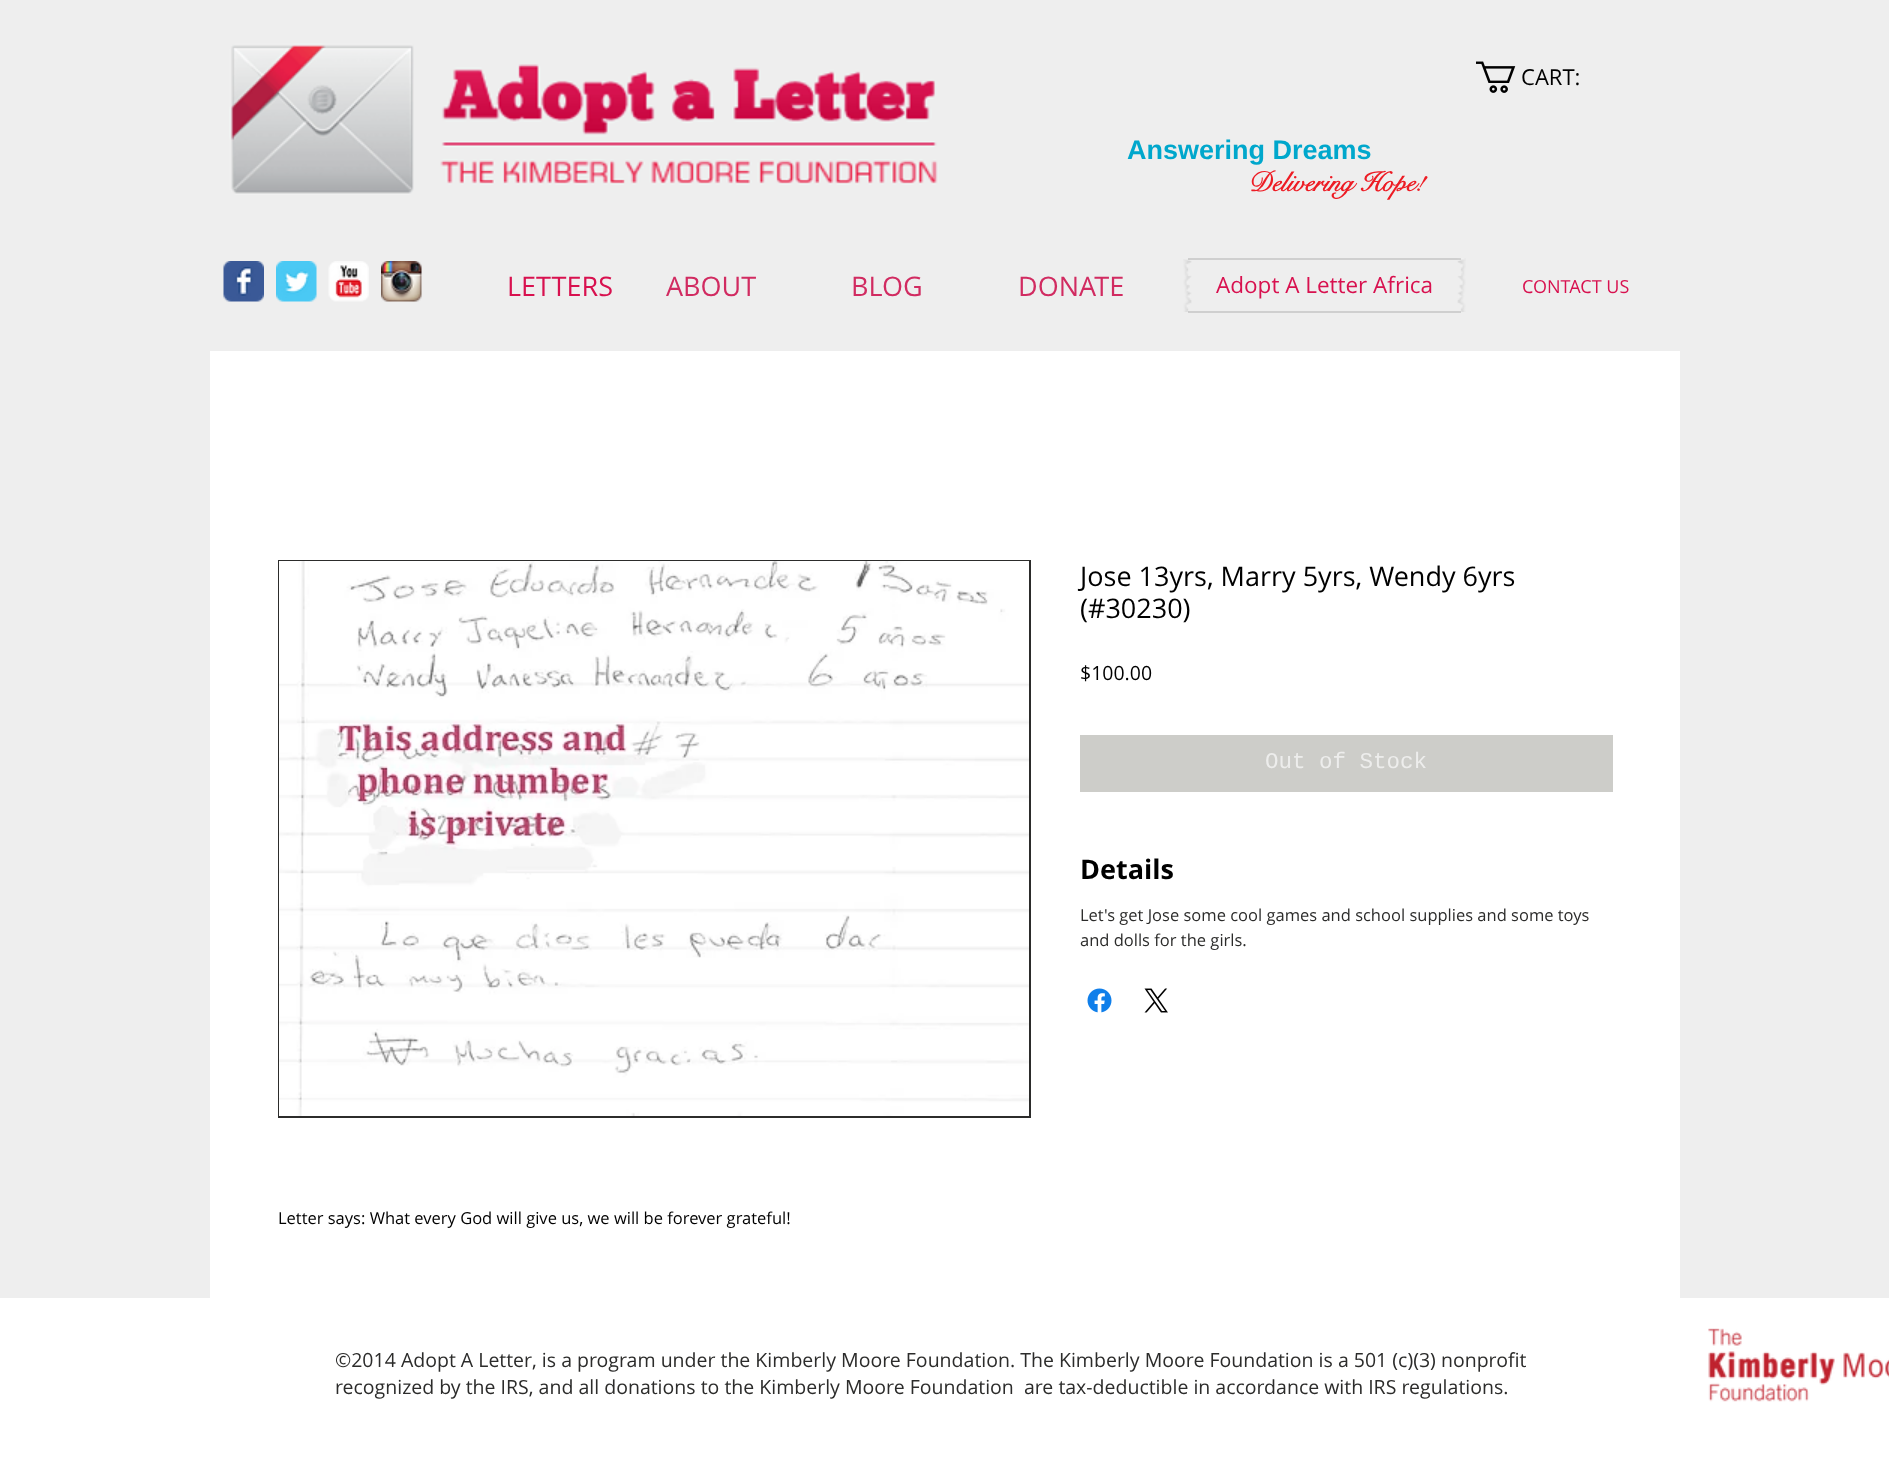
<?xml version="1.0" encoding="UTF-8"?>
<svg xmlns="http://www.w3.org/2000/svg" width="1889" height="1475">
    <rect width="100%" height="100%" fill="#EEEEEE"/>
    <image x="229" y="43" width="185" height="152" href="img_01.png"/>
    <image x="440" y="64" width="499" height="121" href="img_02.png"/>
    <image x="1476" y="61" width="40" height="32" href="img_03.png"/>
    <text x="1521" y="85" font-family="Open Sans" font-size="22" fill="#000000">CART:</text>
    <text x="1127" y="159" font-family="Liberation Sans" font-size="27" font-weight="700" fill="#00A7CC">Answering Dreams</text>
    <text x="1248" y="191" font-family="'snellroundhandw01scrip'" font-size="27" font-weight="700" fill="#ED1C24">Delivering Hope!</text>
    <image x="223" y="261" width="41" height="41" href="img_04.png"/>
    <image x="276" y="261" width="41" height="41" href="img_05.png"/>
    <image x="328" y="261" width="41" height="41" href="img_06.png"/>
    <image x="381" y="261" width="41" height="41" href="img_07.png"/>
    <text x="507" y="296" font-family="Open Sans" font-size="27" fill="#D8114F">LETTERS</text>
    <text x="666" y="296" font-family="Open Sans" font-size="27" fill="#D12B61">ABOUT</text>
    <text x="851" y="296" font-family="Open Sans" font-size="27" fill="#D12B61">BLOG</text>
    <text x="1018" y="296" font-family="Open Sans" font-size="27" fill="#D12B61">DONATE</text>
    <image x="1183" y="259" width="9" height="53" href="img_08.png"/>
    <rect x="1188" y="258" width="273" height="2" fill="#000000" fill-opacity="0.13"/>
    <rect x="1188" y="311" width="273" height="2" fill="#000000" fill-opacity="0.13"/>
    <text x="1216" y="293" font-family="Open Sans" font-size="22.5" fill="#D8114F">Adopt A Letter Africa</text>
    <image x="1457" y="258" width="9" height="54" href="img_09.png"/>
    <text x="1522" y="293" font-family="Open Sans" font-size="18" fill="#D8114F">CONTACT US</text>
    <rect x="210" y="351" width="1470" height="947" fill="#FFFFFF"/>
    <text font-family="Open Sans" font-size="27" fill="#000000">
        <tspan x="1080" y="586">Jose 13yrs, Marry 5yrs, Wendy 6yrs</tspan>
        <tspan x="1080" y="618">(#30230)</tspan>
    </text>
    <text x="1080" y="680" font-family="Open Sans" font-size="19.5" fill="#000000">$100.00</text>
    <rect x="1080" y="735" width="533" height="57" fill="#CDCDC9"/>
    <text x="1265" y="768" font-family="Liberation Mono" font-size="22.5" fill="#EDEDEC">Out of Stock</text>
    <text x="1080" y="879" font-family="Open Sans" font-size="27" font-weight="700" fill="#000000">Details</text>
    <text font-family="Open Sans" font-size="16.5" fill="#2C2C2B">
        <tspan x="1080" y="921">Let's get Jose some cool games and school supplies and some toys</tspan>
        <tspan x="1080" y="946">and dolls for the girls.</tspan>
    </text>
    <image x="1087" y="988" width="25" height="25" href="img_10.png"/>
    <image x="1144" y="988" width="24" height="25" href="img_11.png"/>
    <rect x="279" y="561" width="751" height="556" fill="none" stroke="#2C2C2B" stroke-width="2"/>
    <image x="279" y="561" width="750" height="555" href="img_12.png"/>
    <text x="278" y="1224" font-family="Open Sans" font-size="16.5" fill="#000000">Letter says: What every God will give us, we will be forever grateful!</text>
    <rect x="0" y="1298" width="1889" height="177" fill="#FFFFFF"/>
    <text font-family="Open Sans" font-size="19.5" fill="#2C2C2B" xml:space="preserve"><tspan x="335" y="1367">©2014 Adopt A Letter, is a program under the Kimberly Moore Foundation. The Kimberly Moore Foundation is a 501 (c)(3) nonprofit</tspan><tspan x="335" y="1394">recognized by the IRS, and all donations to the Kimberly Moore Foundation  are tax-deductible in accordance with IRS regulations.</tspan></text>
    <image x="1708" y="1328" width="181" height="74" href="img_13.png"/>
</svg>
